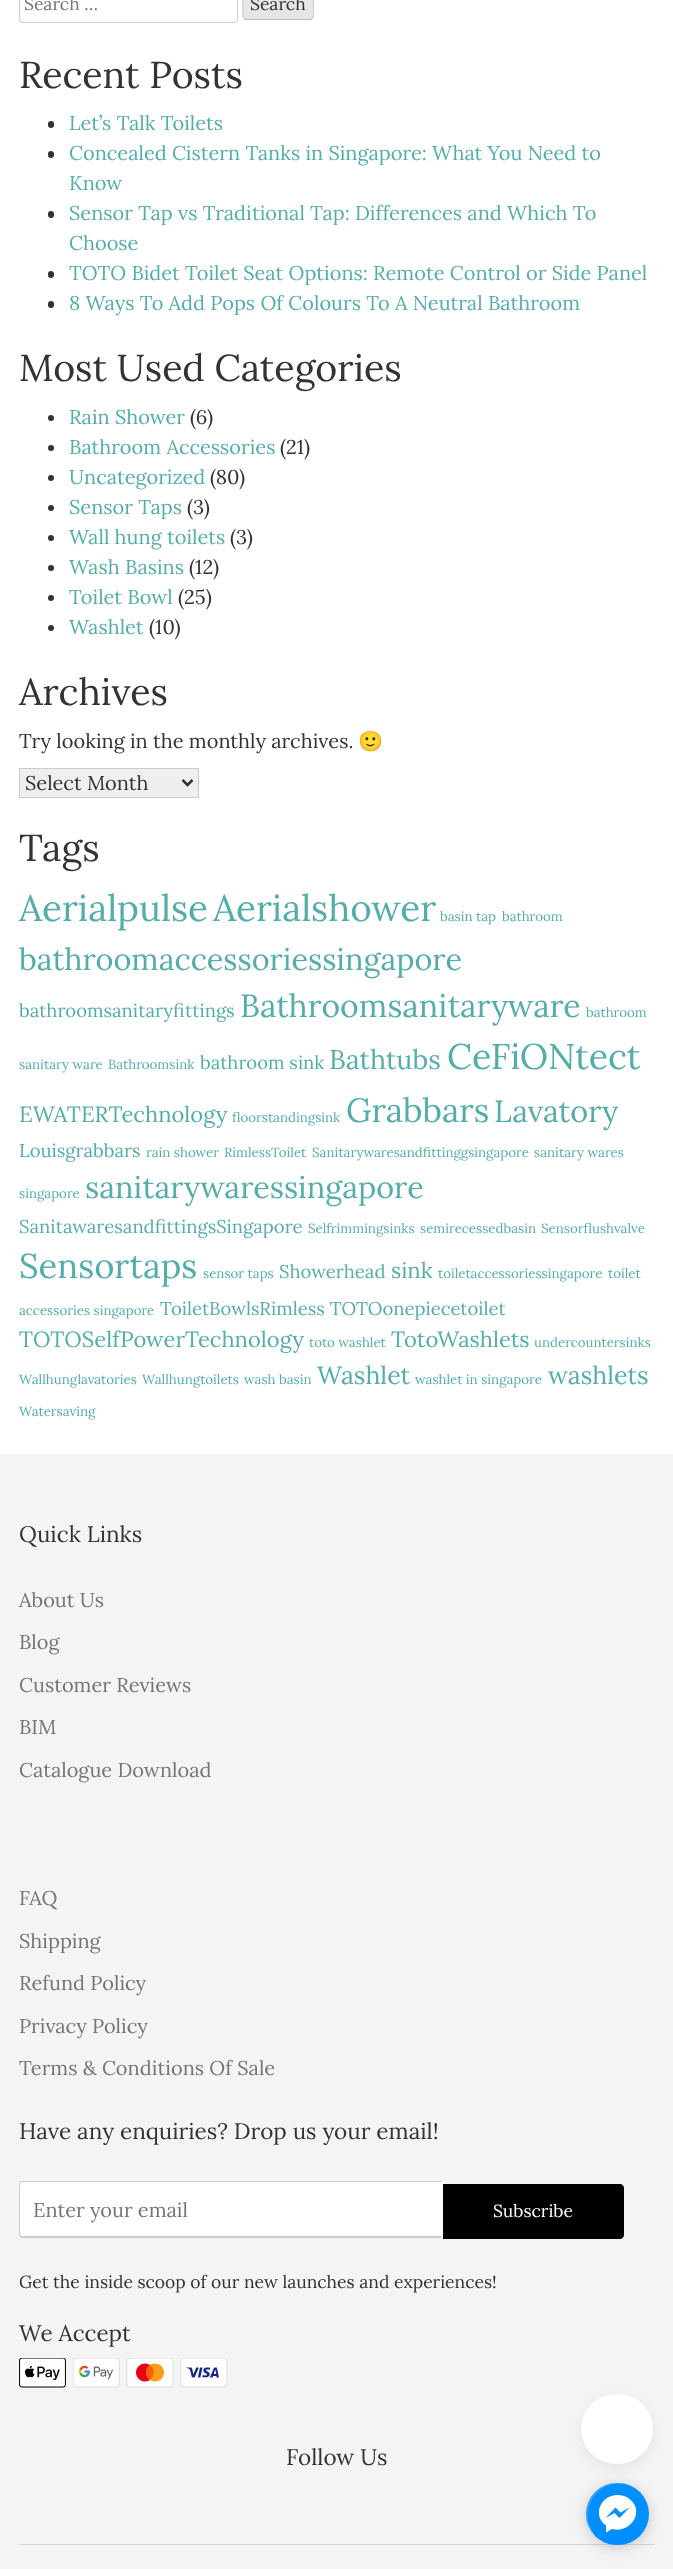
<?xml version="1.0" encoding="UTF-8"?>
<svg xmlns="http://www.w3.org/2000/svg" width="673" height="2569">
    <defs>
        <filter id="blur1" x="-50%" y="-200%" width="200%" height="500%"><feGaussianBlur stdDeviation="6"/></filter>
        <filter id="blur2" x="-50%" y="-200%" width="200%" height="500%"><feGaussianBlur stdDeviation="7"/></filter>
    </defs>
    <rect width="100%" height="100%" fill="#FFFFFF"/>
    <rect x="19.5" y="-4.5" width="218" height="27" rx="3.5" fill="none" stroke="#CCCCCC"/>
    <text x="24" y="10" font-family="Lora" font-size="17.5" fill="#757575">Search …</text>
    <rect x="243" y="-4" width="71" height="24" rx="4" fill="#E6E6E6"/>
    <path d="M 246 -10 H 310 C 314 -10 312 -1 312 1 V 19 C 314 17 313 7 313 4 C 313 -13 317 -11 300 -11 H 257 C 255 -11 244 -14 244 -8 C 244 -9 245 -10 246 -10 Z" fill="#F3F3F3"/>
    <path d="M 312 18.5 L 310 19.5 H 246 L 244 18.5" fill="none" stroke="#BBBBBB" stroke-width="1.2"/>
    <path d="M 244 18.5 C 242 16.5 243 6.5 243 4 C 243 -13.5 240 -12 257 -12 H 299.5 C 316.5 -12 313 -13.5 313 3.5 C 313 6.5 314.5 16.5 312 18.5" fill="none" stroke="#CCCCCC" stroke-width="1.2"/>
    <text x="250" y="10" font-family="Lora" font-size="17.5" fill="#333333">Search</text>
    <text x="19" y="88" font-family="Lora" font-size="37.5" fill="#333333">Recent Posts</text>
    <rect x="48" y="121" width="6" height="7" rx="3" fill="#333333"/>
    <text x="69" y="130" font-family="Lora" font-size="20" fill="#53AEAB">Let’s Talk Toilets</text>
    <rect x="48" y="151" width="6" height="7" rx="3" fill="#333333"/>
    <text font-family="Lora" font-size="20" fill="#53AEAB">
        <tspan x="69" y="160">Concealed Cistern Tanks in Singapore: What You Need to</tspan>
        <tspan x="69" y="190">Know</tspan>
    </text>
    <rect x="48" y="211" width="6" height="7" rx="3" fill="#333333"/>
    <text font-family="Lora" font-size="20" fill="#53AEAB">
        <tspan x="69" y="220">Sensor Tap vs Traditional Tap: Differences and Which To</tspan>
        <tspan x="69" y="250">Choose</tspan>
    </text>
    <rect x="48" y="271" width="6" height="7" rx="3" fill="#333333"/>
    <text x="69" y="280" font-family="Lora" font-size="20" fill="#53AEAB">TOTO Bidet Toilet Seat Options: Remote Control or Side Panel</text>
    <rect x="48" y="301" width="6" height="7" rx="3" fill="#333333"/>
    <text x="69" y="310" font-family="Lora" font-size="20" fill="#53AEAB">8 Ways To Add Pops Of Colours To A Neutral Bathroom</text>
    <text x="19" y="381" font-family="Lora" font-size="37.5" fill="#333333">Most Used Categories</text>
    <circle cx="51" cy="418" r="3" fill="#333333"/>
    <text x="69" y="424" font-family="Lora" font-size="20" fill="#53AEAB">Rain Shower</text>
    <text x="190" y="424" font-family="Lora" font-size="20" fill="#333333">(6)</text>
    <circle cx="51" cy="448" r="3" fill="#333333"/>
    <text x="69" y="454" font-family="Lora" font-size="20" fill="#53AEAB">Bathroom Accessories</text>
    <text x="280" y="454" font-family="Lora" font-size="20" fill="#333333">(21)</text>
    <circle cx="51" cy="478" r="3" fill="#333333"/>
    <text x="69" y="484" font-family="Lora" font-size="20" fill="#53AEAB">Uncategorized</text>
    <text x="210" y="484" font-family="Lora" font-size="20" fill="#333333">(80)</text>
    <circle cx="51" cy="508" r="3" fill="#333333"/>
    <text x="69" y="514" font-family="Lora" font-size="20" fill="#53AEAB">Sensor Taps</text>
    <text x="187" y="514" font-family="Lora" font-size="20" fill="#333333">(3)</text>
    <circle cx="51" cy="538" r="3" fill="#333333"/>
    <text x="69" y="544" font-family="Lora" font-size="20" fill="#53AEAB">Wall hung toilets</text>
    <text x="230" y="544" font-family="Lora" font-size="20" fill="#333333">(3)</text>
    <circle cx="51" cy="568" r="3" fill="#333333"/>
    <text x="69" y="574" font-family="Lora" font-size="20" fill="#53AEAB">Wash Basins</text>
    <text x="189" y="574" font-family="Lora" font-size="20" fill="#333333">(12)</text>
    <circle cx="51" cy="598" r="3" fill="#333333"/>
    <text x="69" y="604" font-family="Lora" font-size="20" fill="#53AEAB">Toilet Bowl</text>
    <text x="178" y="604" font-family="Lora" font-size="20" fill="#333333">(25)</text>
    <circle cx="51" cy="628" r="3" fill="#333333"/>
    <text x="69" y="634" font-family="Lora" font-size="20" fill="#53AEAB">Washlet</text>
    <text x="149" y="634" font-family="Lora" font-size="20" fill="#333333">(10)</text>
    <text x="19" y="705" font-family="Lora" font-size="37.5" fill="#333333">Archives</text>
    <text x="19" y="748" font-family="Lora" font-size="20" fill="#333333">Try looking in the monthly archives.</text>
    <text x="358" y="748" font-family="Noto Color Emoji" font-size="20" fill="#333333">🙂</text>
    <rect x="19.5" y="768.5" width="179" height="29" fill="#EFEFEF" stroke="#CCCCCC"/>
    <path d="M 182.5 780 L 187.5 785 L 192.5 780" fill="none" stroke="#333333" stroke-width="2.5"/>
    <text x="25" y="790" font-family="Lora" font-size="20" fill="#333333">Select Month</text>
    <text x="19" y="861" font-family="Lora" font-size="37.5" fill="#333333">Tags</text>
    <text x="19" y="921" font-family="Lora" font-size="36.75" fill="#53AEAB">Aerialpulse</text>
    <text x="213" y="921" font-family="Lora" font-size="36.75" fill="#53AEAB">Aerialshower</text>
    <text x="440" y="921" font-family="Lora" font-size="13.3" fill="#53AEAB">basin tap</text>
    <text x="502" y="921" font-family="Lora" font-size="13.3" fill="#53AEAB">bathroom</text>
    <text x="19" y="970" font-family="Lora" font-size="30.6" fill="#53AEAB">bathroomaccessoriessingapore</text>
    <text x="19" y="1017" font-family="Lora" font-size="18.5" fill="#53AEAB">bathroomsanitaryfittings</text>
    <text x="240" y="1017" font-family="Lora" font-size="32" fill="#53AEAB">Bathroomsanitaryware</text>
    <text x="586" y="1017" font-family="Lora" font-size="13.3" fill="#53AEAB">bathroom</text>
    <text x="19" y="1069" font-family="Lora" font-size="13.3" fill="#53AEAB">sanitary ware</text>
    <text x="108" y="1069" font-family="Lora" font-size="13.3" fill="#53AEAB">Bathroomsink</text>
    <text x="200" y="1069" font-family="Lora" font-size="18.5" fill="#53AEAB">bathroom sink</text>
    <text x="329" y="1069" font-family="Lora" font-size="27" fill="#53AEAB">Bathtubs</text>
    <text x="447" y="1069" font-family="Lora" font-size="35.75" fill="#53AEAB">CeFiONtect</text>
    <text x="19" y="1122" font-family="Lora" font-size="22" fill="#53AEAB">EWATERTechnology</text>
    <text x="232" y="1122" font-family="Lora" font-size="13.3" fill="#53AEAB">floorstandingsink</text>
    <text x="346" y="1122" font-family="Lora" font-size="33.5" fill="#53AEAB">Grabbars</text>
    <text x="494" y="1122" font-family="Lora" font-size="30.6" fill="#53AEAB">Lavatory</text>
    <text x="19" y="1157" font-family="Lora" font-size="18.5" fill="#53AEAB">Louisgrabbars</text>
    <text x="146" y="1157" font-family="Lora" font-size="13.3" fill="#53AEAB">rain shower</text>
    <text x="224" y="1157" font-family="Lora" font-size="13.3" fill="#53AEAB">RimlessToilet</text>
    <text x="312" y="1157" font-family="Lora" font-size="13.3" fill="#53AEAB">Sanitarywaresandfittinggsingapore</text>
    <text x="534" y="1157" font-family="Lora" font-size="13.3" fill="#53AEAB">sanitary wares</text>
    <text x="19" y="1198" font-family="Lora" font-size="13.3" fill="#53AEAB">singapore</text>
    <text x="85" y="1198" font-family="Lora" font-size="30.6" fill="#53AEAB">sanitarywaressingapore</text>
    <text x="19" y="1233" font-family="Lora" font-size="18.5" fill="#53AEAB">SanitawaresandfittingsSingapore</text>
    <text x="308" y="1233" font-family="Lora" font-size="13.3" fill="#53AEAB">Selfrimmingsinks</text>
    <text x="420" y="1233" font-family="Lora" font-size="13.3" fill="#53AEAB">semirecessedbasin</text>
    <text x="541" y="1233" font-family="Lora" font-size="13.3" fill="#53AEAB">Sensorflushvalve</text>
    <text x="19" y="1278" font-family="Lora" font-size="34.5" fill="#53AEAB">Sensortaps</text>
    <text x="203" y="1278" font-family="Lora" font-size="13.3" fill="#53AEAB">sensor taps</text>
    <text x="279" y="1278" font-family="Lora" font-size="18.5" fill="#53AEAB">Showerhead</text>
    <text x="391" y="1278" font-family="Lora" font-size="22" fill="#53AEAB">sink</text>
    <text x="438" y="1278" font-family="Lora" font-size="13.3" fill="#53AEAB">toiletaccessoriessingapore</text>
    <text x="608" y="1278" font-family="Lora" font-size="13.3" fill="#53AEAB">toilet</text>
    <text x="19" y="1315" font-family="Lora" font-size="13.3" fill="#53AEAB">accessories singapore</text>
    <text x="160" y="1315" font-family="Lora" font-size="18.5" fill="#53AEAB">ToiletBowlsRimless TOTOonepiecetoilet</text>
    <text x="19" y="1347" font-family="Lora" font-size="22" fill="#53AEAB">TOTOSelfPowerTechnology</text>
    <text x="309" y="1347" font-family="Lora" font-size="13.3" fill="#53AEAB">toto washlet</text>
    <text x="391" y="1347" font-family="Lora" font-size="22" fill="#53AEAB">TotoWashlets</text>
    <text x="534" y="1347" font-family="Lora" font-size="13.3" fill="#53AEAB">undercountersinks</text>
    <text x="19" y="1384" font-family="Lora" font-size="13.3" fill="#53AEAB">Wallhunglavatories</text>
    <text x="142" y="1384" font-family="Lora" font-size="13.3" fill="#53AEAB">Wallhungtoilets</text>
    <text x="244" y="1384" font-family="Lora" font-size="13.3" fill="#53AEAB">wash basin</text>
    <text x="317" y="1384" font-family="Lora" font-size="25" fill="#53AEAB">Washlet</text>
    <text x="415" y="1384" font-family="Lora" font-size="13.3" fill="#53AEAB">washlet in singapore</text>
    <text x="548" y="1384" font-family="Lora" font-size="25" fill="#53AEAB">washlets</text>
    <text x="19" y="1416" font-family="Lora" font-size="13.3" fill="#53AEAB">Watersaving</text>
    <rect x="0" y="1454" width="673" height="1115" fill="#F4F4F4"/>
    <text x="19" y="1542" font-family="Lora" font-size="22.5" fill="#333333">Quick Links</text>
    <text x="19" y="1607" font-family="Lora" font-size="20" fill="#757575">About Us</text>
    <text x="19" y="1649" font-family="Lora" font-size="20" fill="#757575">Blog</text>
    <text x="19" y="1692" font-family="Lora" font-size="20" fill="#757575">Customer Reviews</text>
    <text x="19" y="1734" font-family="Lora" font-size="20" fill="#757575">BIM</text>
    <text x="19" y="1777" font-family="Lora" font-size="20" fill="#757575">Catalogue Download</text>
    <text x="19" y="1905" font-family="Lora" font-size="20" fill="#757575">FAQ</text>
    <text x="19" y="1948" font-family="Lora" font-size="20" fill="#757575">Shipping</text>
    <text x="19" y="1990" font-family="Lora" font-size="20" fill="#757575">Refund Policy</text>
    <text x="19" y="2033" font-family="Lora" font-size="20" fill="#757575">Privacy Policy</text>
    <text x="19" y="2075" font-family="Lora" font-size="20" fill="#757575">Terms &amp; Conditions Of Sale</text>
    <text x="19" y="2139" font-family="Lora" font-size="22.5" fill="#333333">Have any enquiries? Drop us your email!</text>
    <path d="M 23 2181 H 443 V 2238 H 23 C 21 2238 19 2236 19 2234 V 2185 C 19 2183 21 2181 23 2181 Z" fill="#FFFFFF"/>
    <path d="M 22 2181 H 442 V 2238 H 22 C 20 2238 19 2236 19 2234 V 2185 C 19 2183 20 2181 22 2181 Z M 22 2182 H 442 V 2236 H 22 C 21 2236 20 2235 20 2234 V 2185 C 20 2184 21 2182 22 2182 Z" fill="#CCCCCC" fill-rule="evenodd"/>
    <text x="33" y="2217" font-family="Lora" font-size="20" fill="#757575">Enter your email</text>
    <path d="M 443 2184 H 620 C 622 2184 624 2186 624 2188 V 2235 C 624 2237 622 2239 620 2239 H 443 Z" fill="#000000"/>
    <text x="493" y="2217" font-family="Lora" font-size="17.5" fill="#FFFFFF">Subscribe</text>
    <text x="19" y="2288" font-family="Lora" font-size="17.5" fill="#333333">Get the inside scoop of our new launches and experiences!</text>
    <text x="19" y="2341" font-family="Lora" font-size="22.5" fill="#333333">We Accept</text>
    <image x="19" y="2358" width="47" height="30" href="img_01.png"/>
    <image x="73" y="2358" width="47" height="30" href="img_02.png"/>
    <image x="126" y="2358" width="48" height="30" href="img_03.png"/>
    <image x="180" y="2358" width="48" height="30" href="img_04.png"/>
    <text x="286" y="2465" font-family="Lora" font-size="22.5" fill="#333333">Follow Us</text>
    <rect x="581" y="2398" width="72" height="70" rx="35" fill="#E2E2E2" filter="url(#blur1)"/>
    <rect x="581" y="2394" width="72" height="70" rx="35" fill="#FFFFFF"/>
    <rect x="19" y="2544" width="636" height="1" fill="#D3D3D3"/>
    <rect x="586" y="2485" width="63" height="63" rx="31.5" fill="#808080" fill-opacity="0.4" filter="url(#blur2)"/>
    <rect x="586" y="2483" width="63" height="62" rx="31" fill="#008FFF"/>
    <path d="M 619 2484 C 628 2484 636 2488 641 2494 C 630 2480 608 2479 595 2492 C 581 2506 584 2531 602 2541 C 577 2525 588 2484 619 2484 Z" fill="#FFFFFF" fill-opacity="0.15"/>
    <path d="M 617.5 2495 C 600.5 2495 592 2515.5 606 2525.5 V 2532.5 L 612 2529 C 630.5 2534 645.5 2511 629.5 2499 C 626 2496 622 2495 617.5 2495 Z M 619.5 2518 L 614.5 2513 L 605.5 2518 L 615.5 2507.5 L 620.5 2512.5 L 629.5 2507.5 Z" fill="#FFFFFF"/>
</svg>
